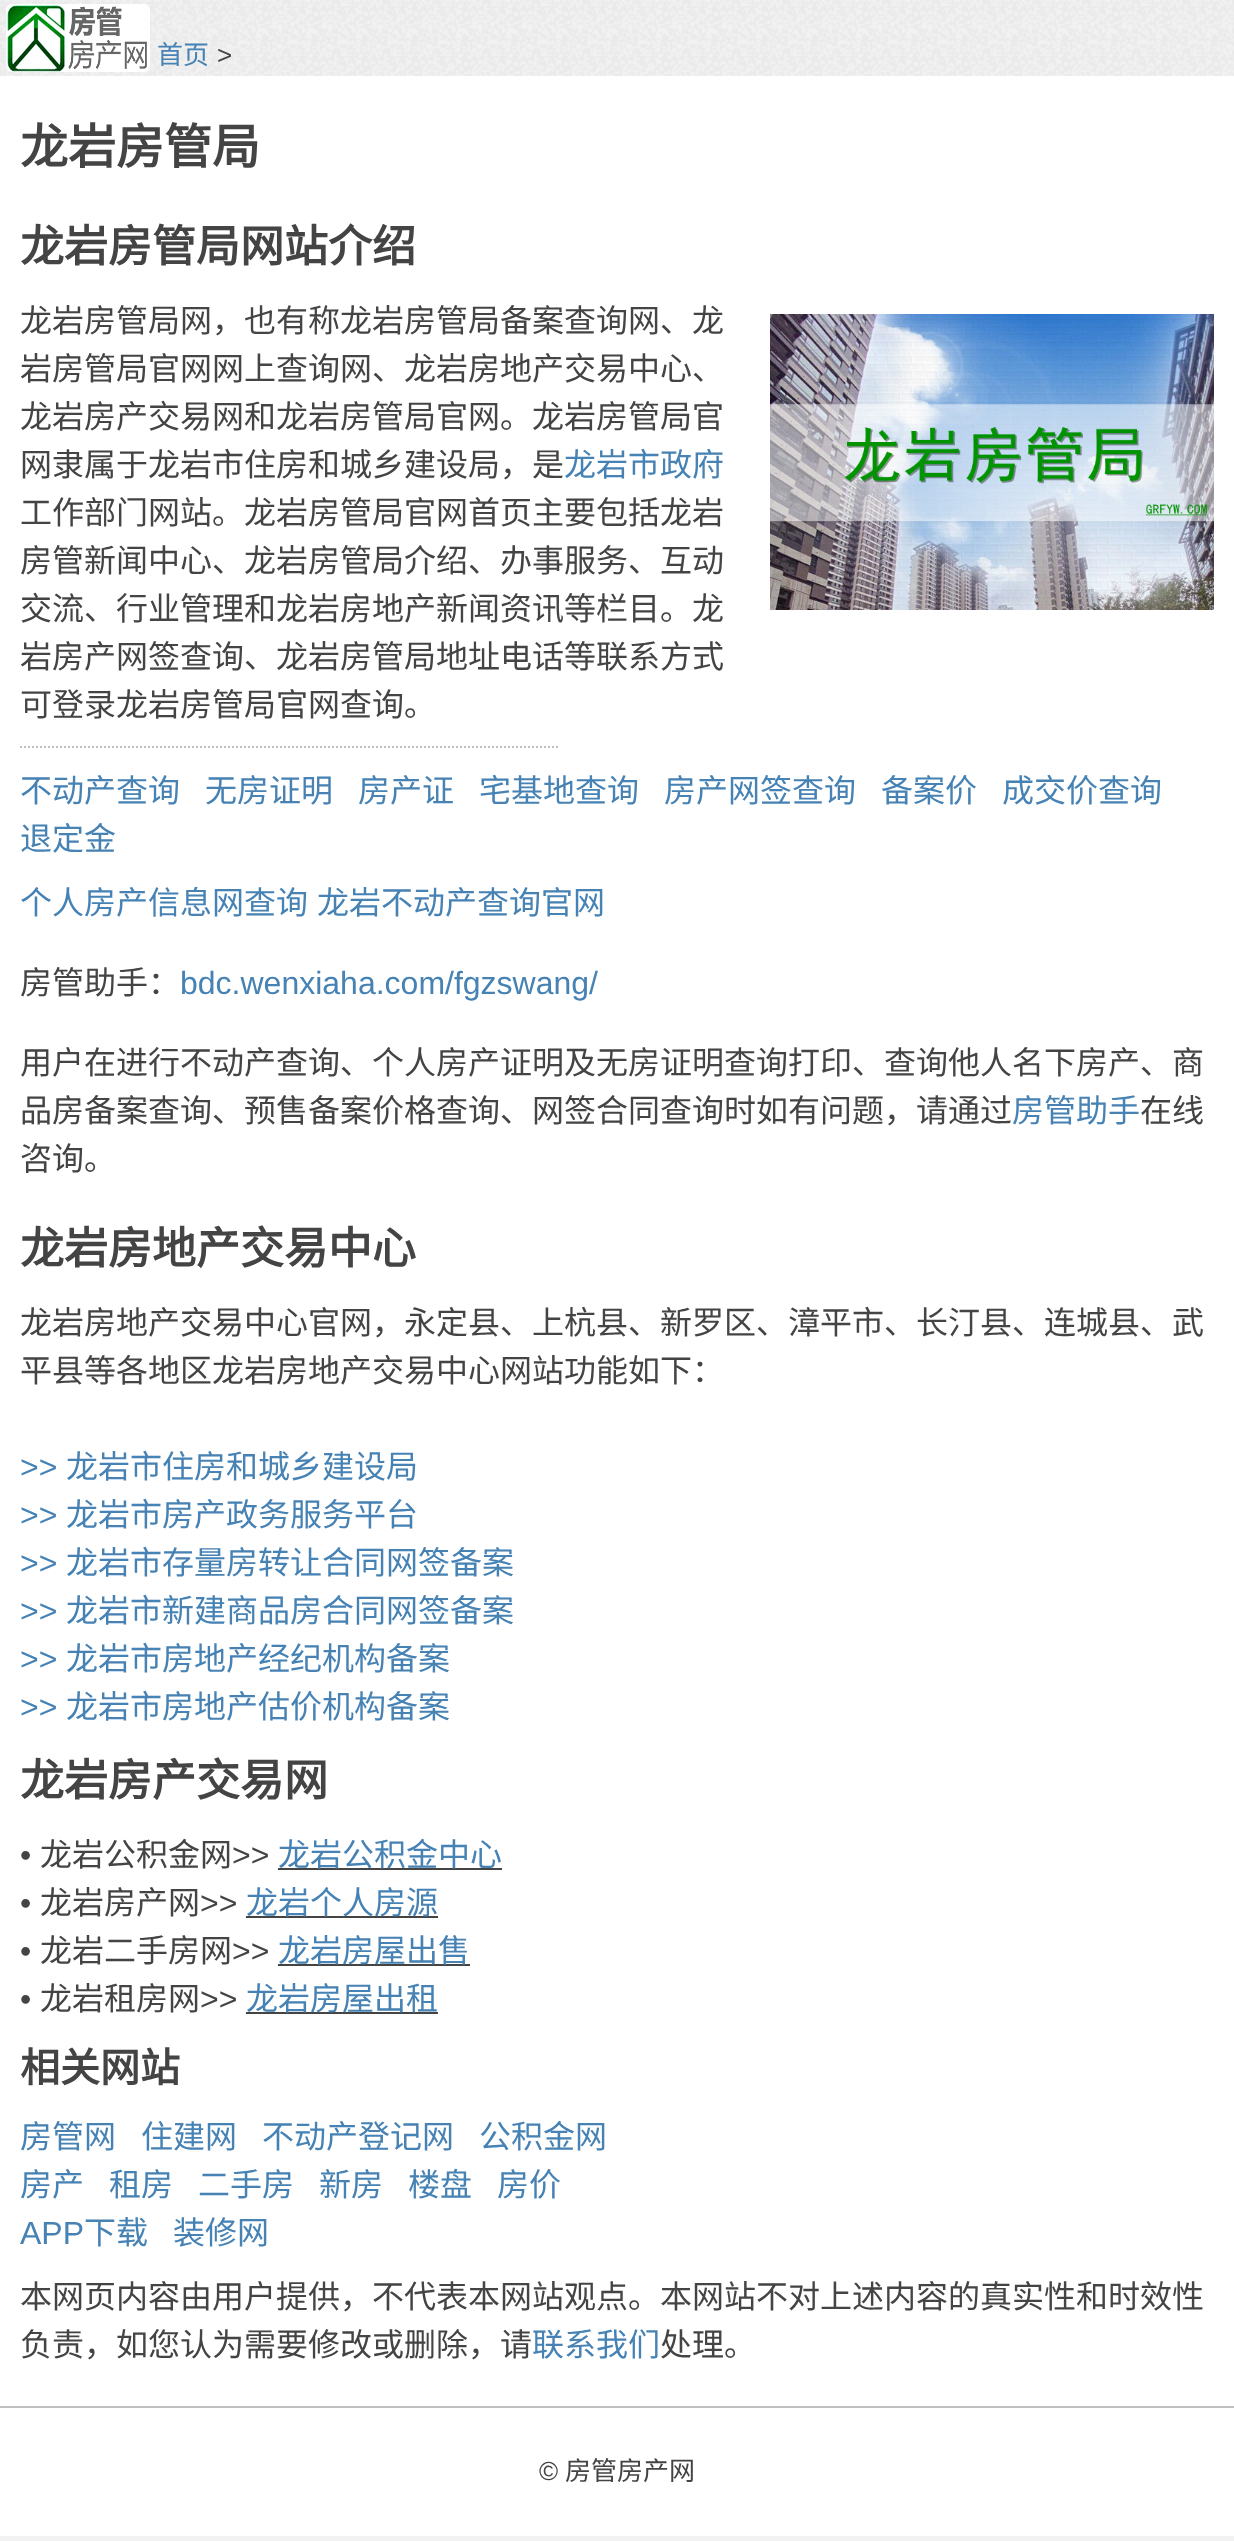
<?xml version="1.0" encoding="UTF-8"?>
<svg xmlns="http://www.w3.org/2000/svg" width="1234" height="2541">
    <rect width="100%" height="100%" fill="#F2F2F2"/>
    <image x="0" y="0" width="1234" height="76" href="img_01.png"/>
    <image x="6" y="4" width="144" height="68" href="img_02.png"/>
    <text x="157" y="64" font-family="Noto Sans CJK SC" font-size="26" fill="#4682B4">首页</text>
    <text x="217" y="64" font-family="Liberation Sans" font-size="26" fill="#444444">&gt;</text>
    <rect x="0" y="76" width="1234" height="2330" fill="#FFFFFF"/>
    <text x="20" y="164" font-family="Noto Sans CJK SC" font-size="48" font-weight="700" fill="#444444">龙岩房管局</text>
    <text x="20" y="262" font-family="Noto Sans CJK SC" font-size="44" font-weight="700" fill="#444444">龙岩房管局网站介绍</text>
    <text x="20" y="332" font-family="Noto Sans CJK SC" font-size="32" fill="#444444">龙岩房管局网，也有称龙岩房管局备案查询网、龙</text>
    <image x="770" y="314" width="444" height="296" href="img_03.png"/>
    <text font-family="Noto Sans CJK SC" font-size="32" fill="#444444">
        <tspan x="20" y="380">岩房管局官网网上查询网、龙岩房地产交易中心、</tspan>
        <tspan x="20" y="428">龙岩房产交易网和龙岩房管局官网。龙岩房管局官</tspan>
        <tspan x="20" y="476">网隶属于龙岩市住房和城乡建设局，是</tspan>
    </text>
    <text x="564" y="476" font-family="Noto Sans CJK SC" font-size="32" fill="#4682B4">龙岩市政府</text>
    <text font-family="Noto Sans CJK SC" font-size="32" fill="#444444">
        <tspan x="20" y="524">工作部门网站。龙岩房管局官网首页主要包括龙岩</tspan>
        <tspan x="20" y="572">房管新闻中心、龙岩房管局介绍、办事服务、互动</tspan>
        <tspan x="20" y="620">交流、行业管理和龙岩房地产新闻资讯等栏目。龙</tspan>
        <tspan x="20" y="668">岩房产网签查询、龙岩房管局地址电话等联系方式</tspan>
        <tspan x="20" y="716">可登录龙岩房管局官网查询。</tspan>
    </text>
    <path d="M 20 747 H 560" fill="none" stroke="#C0C0C0" stroke-width="2" stroke-dasharray="2 2"/>
    <text x="20" y="802" font-family="Noto Sans CJK SC" font-size="32" fill="#4682B4">不动产查询</text>
    <text x="205" y="802" font-family="Noto Sans CJK SC" font-size="32" fill="#4682B4">无房证明</text>
    <text x="358" y="802" font-family="Noto Sans CJK SC" font-size="32" fill="#4682B4">房产证</text>
    <text x="479" y="802" font-family="Noto Sans CJK SC" font-size="32" fill="#4682B4">宅基地查询</text>
    <text x="664" y="802" font-family="Noto Sans CJK SC" font-size="32" fill="#4682B4">房产网签查询</text>
    <text x="881" y="802" font-family="Noto Sans CJK SC" font-size="32" fill="#4682B4">备案价</text>
    <text x="1002" y="802" font-family="Noto Sans CJK SC" font-size="32" fill="#4682B4">成交价查询</text>
    <text x="20" y="850" font-family="Noto Sans CJK SC" font-size="32" fill="#4682B4">退定金</text>
    <text x="20" y="914" font-family="Noto Sans CJK SC" font-size="32" fill="#4682B4">个人房产信息网查询</text>
    <text x="317" y="914" font-family="Noto Sans CJK SC" font-size="32" fill="#4682B4">龙岩不动产查询官网</text>
    <text x="20" y="994" font-family="Noto Sans CJK SC" font-size="32" fill="#444444">房管助手：</text>
    <text x="180" y="994" font-family="Liberation Sans" font-size="32" fill="#4682B4">bdc.wenxiaha.com/fgzswang/</text>
    <text font-family="Noto Sans CJK SC" font-size="32" fill="#444444">
        <tspan x="20" y="1074">用户在进行不动产查询、个人房产证明及无房证明查询打印、查询他人名下房产、商</tspan>
        <tspan x="20" y="1122">品房备案查询、预售备案价格查询、网签合同查询时如有问题，请通过</tspan>
    </text>
    <text x="1012" y="1122" font-family="Noto Sans CJK SC" font-size="32" fill="#4682B4">房管助手</text>
    <text x="1140" y="1122" font-family="Noto Sans CJK SC" font-size="32" fill="#444444">在线</text>
    <text x="20" y="1170" font-family="Noto Sans CJK SC" font-size="32" fill="#444444">咨询。</text>
    <text x="20" y="1264" font-family="Noto Sans CJK SC" font-size="44" font-weight="700" fill="#444444">龙岩房地产交易中心</text>
    <text font-family="Noto Sans CJK SC" font-size="32" fill="#444444">
        <tspan x="20" y="1334">龙岩房地产交易中心官网，永定县、上杭县、新罗区、漳平市、长汀县、连城县、武</tspan>
        <tspan x="20" y="1382">平县等各地区龙岩房地产交易中心网站功能如下：</tspan>
    </text>
    <text x="20" y="1478" font-family="Liberation Sans" font-size="32" fill="#4682B4">&gt;&gt;</text>
    <text x="66" y="1478" font-family="Noto Sans CJK SC" font-size="32" fill="#4682B4">龙岩市住房和城乡建设局</text>
    <text x="20" y="1526" font-family="Liberation Sans" font-size="32" fill="#4682B4">&gt;&gt;</text>
    <text x="66" y="1526" font-family="Noto Sans CJK SC" font-size="32" fill="#4682B4">龙岩市房产政务服务平台</text>
    <text x="20" y="1574" font-family="Liberation Sans" font-size="32" fill="#4682B4">&gt;&gt;</text>
    <text x="66" y="1574" font-family="Noto Sans CJK SC" font-size="32" fill="#4682B4">龙岩市存量房转让合同网签备案</text>
    <text x="20" y="1622" font-family="Liberation Sans" font-size="32" fill="#4682B4">&gt;&gt;</text>
    <text x="66" y="1622" font-family="Noto Sans CJK SC" font-size="32" fill="#4682B4">龙岩市新建商品房合同网签备案</text>
    <text x="20" y="1670" font-family="Liberation Sans" font-size="32" fill="#4682B4">&gt;&gt;</text>
    <text x="66" y="1670" font-family="Noto Sans CJK SC" font-size="32" fill="#4682B4">龙岩市房地产经纪机构备案</text>
    <text x="20" y="1718" font-family="Liberation Sans" font-size="32" fill="#4682B4">&gt;&gt;</text>
    <text x="66" y="1718" font-family="Noto Sans CJK SC" font-size="32" fill="#4682B4">龙岩市房地产估价机构备案</text>
    <text x="20" y="1796" font-family="Noto Sans CJK SC" font-size="44" font-weight="700" fill="#444444">龙岩房产交易网</text>
    <text x="20" y="1866" font-family="Liberation Sans" font-size="32" fill="#444444">•</text>
    <text x="40" y="1866" font-family="Noto Sans CJK SC" font-size="32" fill="#444444">龙岩公积金网</text>
    <text x="232" y="1866" font-family="Liberation Sans" font-size="32" fill="#444444">&gt;&gt;</text>
    <rect x="278" y="1868" width="224" height="2" fill="#444444"/>
    <text x="278" y="1866" font-family="Noto Sans CJK SC" font-size="32" fill="#4682B4">龙岩公积金中心</text>
    <text x="20" y="1914" font-family="Liberation Sans" font-size="32" fill="#444444">•</text>
    <text x="40" y="1914" font-family="Noto Sans CJK SC" font-size="32" fill="#444444">龙岩房产网</text>
    <text x="200" y="1914" font-family="Liberation Sans" font-size="32" fill="#444444">&gt;&gt;</text>
    <rect x="246" y="1916" width="192" height="2" fill="#444444"/>
    <text x="246" y="1914" font-family="Noto Sans CJK SC" font-size="32" fill="#4682B4">龙岩个人房源</text>
    <text x="20" y="1962" font-family="Liberation Sans" font-size="32" fill="#444444">•</text>
    <text x="40" y="1962" font-family="Noto Sans CJK SC" font-size="32" fill="#444444">龙岩二手房网</text>
    <text x="232" y="1962" font-family="Liberation Sans" font-size="32" fill="#444444">&gt;&gt;</text>
    <rect x="278" y="1964" width="192" height="2" fill="#444444"/>
    <text x="278" y="1962" font-family="Noto Sans CJK SC" font-size="32" fill="#4682B4">龙岩房屋出售</text>
    <text x="20" y="2010" font-family="Liberation Sans" font-size="32" fill="#444444">•</text>
    <text x="40" y="2010" font-family="Noto Sans CJK SC" font-size="32" fill="#444444">龙岩租房网</text>
    <text x="200" y="2010" font-family="Liberation Sans" font-size="32" fill="#444444">&gt;&gt;</text>
    <rect x="246" y="2012" width="192" height="2" fill="#444444"/>
    <text x="246" y="2010" font-family="Noto Sans CJK SC" font-size="32" fill="#4682B4">龙岩房屋出租</text>
    <text x="20" y="2082" font-family="Noto Sans CJK SC" font-size="40" font-weight="700" fill="#444444">相关网站</text>
    <text x="20" y="2148" font-family="Noto Sans CJK SC" font-size="32" fill="#4682B4">房管网</text>
    <text x="141" y="2148" font-family="Noto Sans CJK SC" font-size="32" fill="#4682B4">住建网</text>
    <text x="262" y="2148" font-family="Noto Sans CJK SC" font-size="32" fill="#4682B4">不动产登记网</text>
    <text x="479" y="2148" font-family="Noto Sans CJK SC" font-size="32" fill="#4682B4">公积金网</text>
    <text x="20" y="2196" font-family="Noto Sans CJK SC" font-size="32" fill="#4682B4">房产</text>
    <text x="109" y="2196" font-family="Noto Sans CJK SC" font-size="32" fill="#4682B4">租房</text>
    <text x="198" y="2196" font-family="Noto Sans CJK SC" font-size="32" fill="#4682B4">二手房</text>
    <text x="319" y="2196" font-family="Noto Sans CJK SC" font-size="32" fill="#4682B4">新房</text>
    <text x="408" y="2196" font-family="Noto Sans CJK SC" font-size="32" fill="#4682B4">楼盘</text>
    <text x="497" y="2196" font-family="Noto Sans CJK SC" font-size="32" fill="#4682B4">房价</text>
    <text x="20" y="2244" font-family="Liberation Sans" font-size="32" fill="#4682B4">APP</text>
    <text x="84" y="2244" font-family="Noto Sans CJK SC" font-size="32" fill="#4682B4">下载</text>
    <text x="173" y="2244" font-family="Noto Sans CJK SC" font-size="32" fill="#4682B4">装修网</text>
    <text font-family="Noto Sans CJK SC" font-size="32" fill="#444444">
        <tspan x="20" y="2308">本网页内容由用户提供，不代表本网站观点。本网站不对上述内容的真实性和时效性</tspan>
        <tspan x="20" y="2356">负责，如您认为需要修改或删除，请</tspan>
    </text>
    <text x="532" y="2356" font-family="Noto Sans CJK SC" font-size="32" fill="#4682B4">联系我们</text>
    <text x="660" y="2356" font-family="Noto Sans CJK SC" font-size="32" fill="#444444">处理。</text>
    <rect x="0" y="2408" width="1234" height="128" fill="#FFFFFF"/>
    <rect x="0" y="2406" width="1234" height="2" fill="#C0C0C0"/>
    <text x="539" y="2480" font-family="Liberation Sans" font-size="26" fill="#444444">©</text>
    <text x="565" y="2480" font-family="Noto Sans CJK SC" font-size="26" fill="#444444">房管房产网</text>
</svg>
